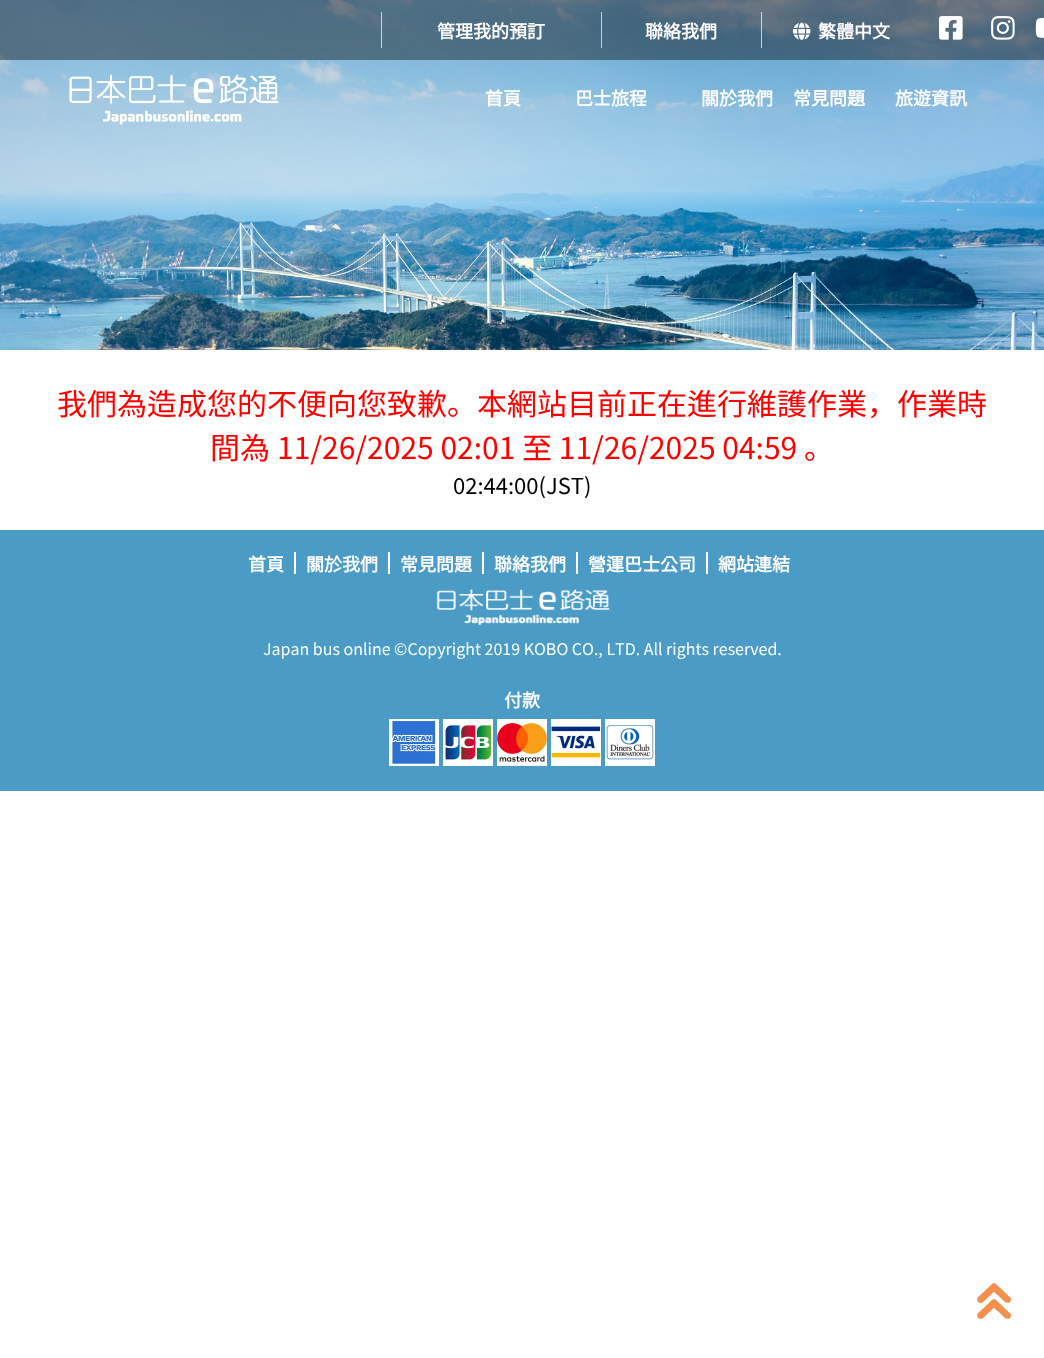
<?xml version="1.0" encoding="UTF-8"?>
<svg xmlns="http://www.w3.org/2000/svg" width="1044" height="1358">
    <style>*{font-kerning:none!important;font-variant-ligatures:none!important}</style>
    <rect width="100%" height="100%" fill="#FFFFFF"/>
    <image x="0" y="0" width="1044" height="350" href="img_01.png"/>
    <rect x="0" y="0" width="1044" height="60" fill="#000000" fill-opacity="0.4"/>
    <rect x="381" y="12" width="1" height="36" fill="#FFFFFF" fill-opacity="0.7"/>
    <text x="437" y="38" font-family="Noto Sans KR" font-size="18" font-weight="700" fill="#FFFFFF">管理我的預訂</text>
    <rect x="601" y="12" width="1" height="36" fill="#FFFFFF" fill-opacity="0.7"/>
    <text x="645" y="38" font-family="Noto Sans KR" font-size="18" font-weight="700" fill="#FFFFFF">聯絡我們</text>
    <rect x="761" y="12" width="1" height="36" fill="#FFFFFF" fill-opacity="0.7"/>
    <image x="793" y="22" width="18" height="18" href="img_02.png"/>
    <text x="818" y="38" font-family="Noto Sans KR" font-size="18" font-weight="700" fill="#FFFFFF">繁體中文</text>
    <image x="939" y="16" width="24" height="24" href="img_03.png"/>
    <image x="991" y="16" width="24" height="24" href="img_04.png"/>
    <image x="1035" y="17" width="9" height="21" href="img_05.png"/>
    <image x="69" y="74" width="210" height="51" href="img_06.png"/>
    <text x="485" y="105" font-family="Noto Sans KR" font-size="18" font-weight="700" fill="#FFFFFF">首頁</text>
    <text x="575" y="105" font-family="Noto Sans KR" font-size="18" font-weight="700" fill="#FFFFFF">巴士旅程</text>
    <text x="701" y="105" font-family="Noto Sans KR" font-size="18" font-weight="700" fill="#FFFFFF">關於我們</text>
    <text x="793" y="105" font-family="Noto Sans KR" font-size="18" font-weight="700" fill="#FFFFFF">常見問題</text>
    <text x="895" y="105" font-family="Noto Sans KR" font-size="18" font-weight="700" fill="#FFFFFF">旅遊資訊</text>
    <text x="57" y="415" font-family="Noto Sans SC" font-size="30" font-weight="100" fill="#FF0000">我</text>
    <text x="87" y="415" font-family="Noto Sans KR" font-size="30" font-weight="100" fill="#FF0000">們</text>
    <text x="117" y="415" font-family="Noto Sans SC" font-size="30" font-weight="100" fill="#FF0000">為</text>
    <text x="147" y="415" font-family="Noto Sans KR" font-size="30" font-weight="100" fill="#FF0000">造成</text>
    <text x="207" y="415" font-family="Noto Sans SC" font-size="30" font-weight="100" fill="#FF0000">您</text>
    <text x="237" y="415" font-family="Noto Sans KR" font-size="30" font-weight="100" fill="#FF0000">的</text>
    <text x="267" y="415" font-family="Noto Sans SC" font-size="30" font-weight="100" fill="#FF0000">不</text>
    <text x="297" y="415" font-family="Noto Sans KR" font-size="30" font-weight="100" fill="#FF0000">便向</text>
    <text x="357" y="415" font-family="Noto Sans SC" font-size="30" font-weight="100" fill="#FF0000">您</text>
    <text x="387" y="415" font-family="Noto Sans KR" font-size="30" font-weight="100" fill="#FF0000">致</text>
    <text x="417" y="415" font-family="Noto Sans SC" font-size="30" font-weight="100" fill="#FF0000">歉</text>
    <text x="447" y="415" font-family="Noto Sans KR" font-size="30" font-weight="100" fill="#FF0000">。</text>
    <text x="477" y="415" font-family="Noto Sans SC" font-size="30" font-weight="100" fill="#FF0000">本</text>
    <text x="507" y="415" font-family="Noto Sans KR" font-size="30" font-weight="100" fill="#FF0000">網</text>
    <text x="537" y="415" font-family="Noto Sans SC" font-size="30" font-weight="100" fill="#FF0000">站</text>
    <text x="567" y="415" font-family="Noto Sans KR" font-size="30" font-weight="100" fill="#FF0000">目</text>
    <text x="597" y="415" font-family="Noto Sans SC" font-size="30" font-weight="100" fill="#FF0000">前正在</text>
    <text x="687" y="415" font-family="Noto Sans KR" font-size="30" font-weight="100" fill="#FF0000">進</text>
    <text x="717" y="415" font-family="Noto Sans SC" font-size="30" font-weight="100" fill="#FF0000">行</text>
    <text x="747" y="415" font-family="Noto Sans KR" font-size="30" font-weight="100" fill="#FF0000">維護</text>
    <text x="807" y="415" font-family="Noto Sans SC" font-size="30" font-weight="100" fill="#FF0000">作</text>
    <text x="837" y="415" font-family="Noto Sans KR" font-size="30" font-weight="100" fill="#FF0000">業，</text>
    <text x="897" y="415" font-family="Noto Sans SC" font-size="30" font-weight="100" fill="#FF0000">作</text>
    <text x="927" y="415" font-family="Noto Sans KR" font-size="30" font-weight="100" fill="#FF0000">業時</text>
    <text x="210" y="459" font-family="Noto Sans KR" font-size="30" font-weight="100" fill="#FF0000">間</text>
    <text x="240" y="459" font-family="Noto Sans SC" font-size="30" font-weight="100" fill="#FF0000">為</text>
    <text x="277" y="459" font-family="Noto Sans KR" font-size="30" font-weight="100" fill="#FF0000">11/26/2025 02:01 至 11/26/2025 04:59 。</text>
    <text x="453" y="494" font-family="Noto Sans KR" font-size="22" font-weight="100" fill="#000000">02:44:00(JST)</text>
    <rect x="0" y="530" width="1044" height="261" fill="#4A9CC7"/>
    <text x="248" y="571" font-family="Noto Sans KR" font-size="18" font-weight="700" fill="#FFFFFF">首頁</text>
    <rect x="294" y="552" width="2" height="22" fill="#FFFFFF"/>
    <text x="306" y="571" font-family="Noto Sans KR" font-size="18" font-weight="700" fill="#FFFFFF">關於我們</text>
    <rect x="388" y="552" width="2" height="22" fill="#FFFFFF"/>
    <text x="400" y="571" font-family="Noto Sans KR" font-size="18" font-weight="700" fill="#FFFFFF">常見問題</text>
    <rect x="482" y="552" width="2" height="22" fill="#FFFFFF"/>
    <text x="494" y="571" font-family="Noto Sans KR" font-size="18" font-weight="700" fill="#FFFFFF">聯絡我們</text>
    <rect x="576" y="552" width="2" height="22" fill="#FFFFFF"/>
    <text x="588" y="571" font-family="Noto Sans KR" font-size="18" font-weight="700" fill="#FFFFFF">營運巴士公司</text>
    <rect x="706" y="552" width="2" height="22" fill="#FFFFFF"/>
    <text x="718" y="571" font-family="Noto Sans KR" font-size="18" font-weight="700" fill="#FFFFFF">網站連結</text>
    <image x="436" y="589" width="174" height="37" href="img_07.png"/>
    <text x="263" y="655" font-family="Noto Sans KR" font-size="16" font-weight="100" fill="#FFFFFF">Japan bus online ©Copyright 2019 KOBO CO., LTD. All rights reserved.</text>
    <text x="504" y="707" font-family="Noto Sans KR" font-size="18" font-weight="700" fill="#FFFFFF">付款</text>
    <image x="389" y="719" width="50" height="47" href="img_08.png"/>
    <image x="443" y="719" width="50" height="47" href="img_09.png"/>
    <image x="497" y="719" width="50" height="47" href="img_10.png"/>
    <image x="551" y="719" width="50" height="47" href="img_11.png"/>
    <image x="605" y="719" width="50" height="47" href="img_12.png"/>
    <image x="975" y="1283" width="37" height="36" href="img_13.png"/>
</svg>
